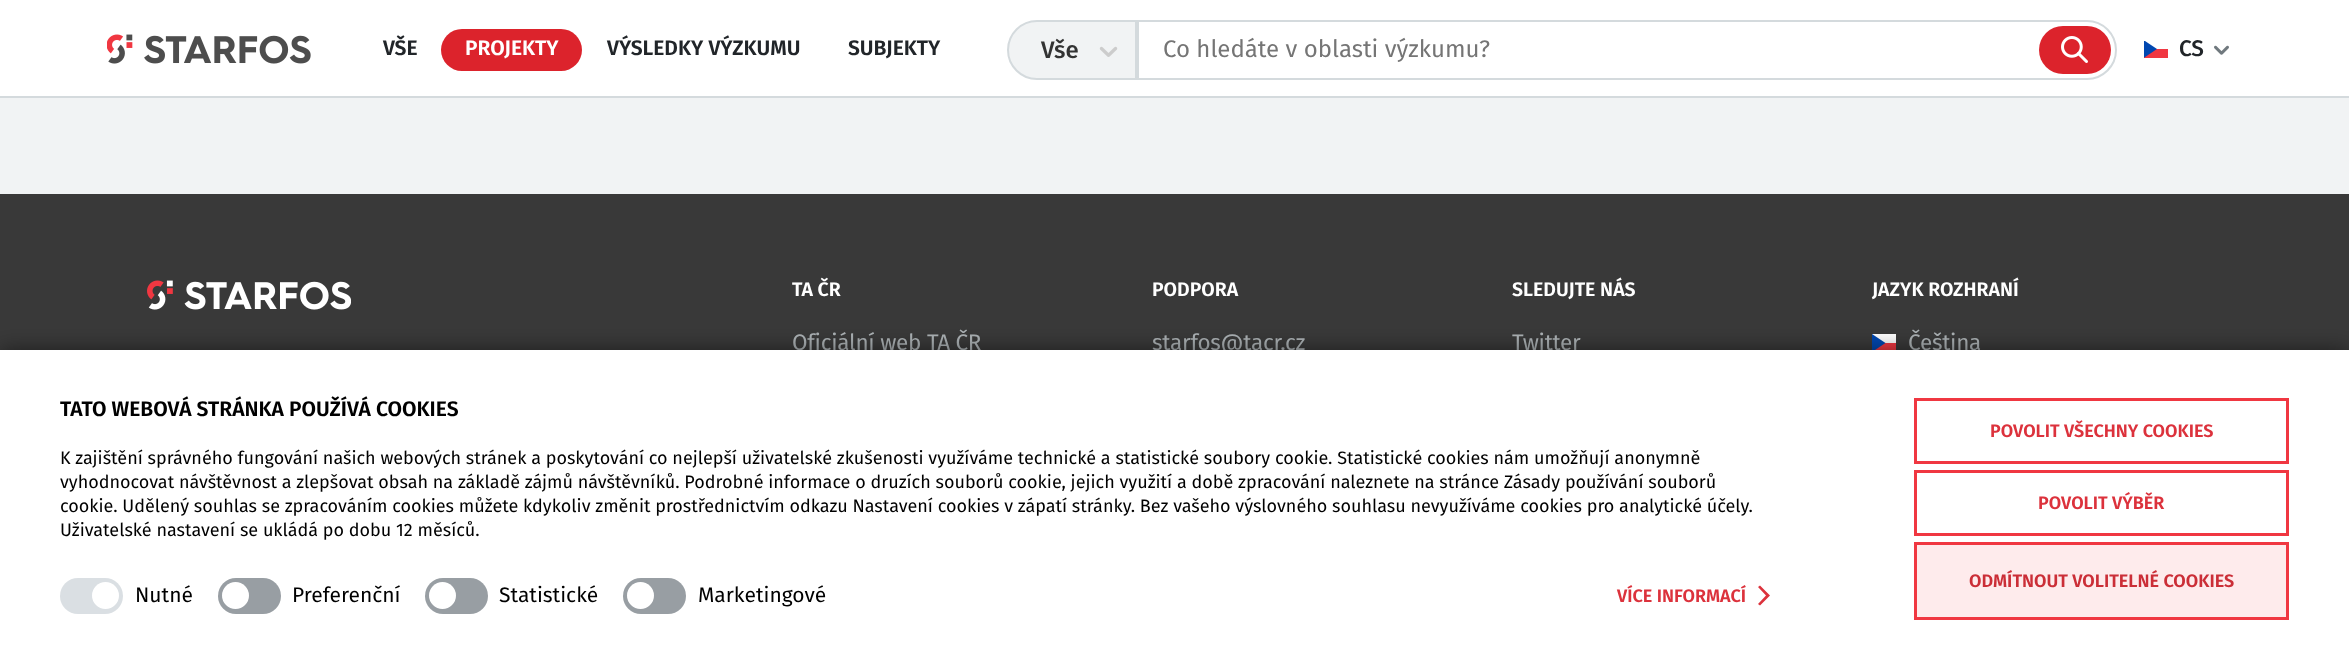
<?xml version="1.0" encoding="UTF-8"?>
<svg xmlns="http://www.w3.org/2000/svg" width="2349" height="667">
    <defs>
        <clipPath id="clip1"><rect x="2144" y="41" width="24" height="17"/></clipPath>
        <filter id="blur1" x="-50%" y="-200%" width="200%" height="500%"><feGaussianBlur stdDeviation="11"/></filter>
    </defs>
    <rect width="100%" height="100%" fill="#393939"/>
    <rect x="0" y="0" width="2349" height="96" fill="#FFFFFF"/>
    <rect x="0" y="96" width="2349" height="2" fill="#D4DADD"/>
    <image x="107" y="34" width="204" height="30" href="img_01.png"/>
    <text x="383" y="55" font-family="Fira Sans" font-size="21" font-weight="600" fill="#212529">VŠE</text>
    <rect x="441" y="29" width="141" height="42" rx="21" fill="#DC232C"/>
    <text x="465" y="55" font-family="Fira Sans" font-size="21" font-weight="600" fill="#FFFFFF">PROJEKTY</text>
    <text x="607" y="55" font-family="Fira Sans" font-size="21" font-weight="600" fill="#212529">VÝSLEDKY VÝZKUMU</text>
    <text x="848" y="55" font-family="Fira Sans" font-size="21" font-weight="600" fill="#212529">SUBJEKTY</text>
    <path d="M 1037 21 H 1136 V 79 H 1037 C 1021 79 1008 66 1008 50 C 1008 34 1021 21 1037 21 Z" fill="#F1F3F4" stroke="#D4DADD" stroke-width="2"/>
    <text x="1041" y="58" font-family="Fira Sans" font-size="24" font-weight="500" fill="#333333">Vše</text>
    <image x="1099" y="46" width="19" height="11" href="img_02.png"/>
    <path d="M 1138 21 H 2087 C 2103 21 2116 34 2116 50 C 2116 66 2103 79 2087 79 H 1138 Z" fill="none" stroke="#D4DADD" stroke-width="2"/>
    <text x="1163" y="57" font-family="Fira Sans" font-size="24" fill="#757575">Co hledáte v oblasti výzkumu?</text>
    <rect x="2039" y="26" width="72" height="48" rx="24" fill="#DC232C"/>
    <image x="2061" y="36" width="27" height="27" href="img_03.png"/>
    <rect x="2144" y="49" width="24" height="9" fill="#F03741"/>
    <g clip-path="url(#clip1)">
        <path d="M 2143.5 40 L 2157 49 L 2143.5 58 Z" fill="#0047B0" fill-rule="evenodd"/>
    </g>
    <text x="2179" y="56" font-family="Fira Sans" font-size="22.5" font-weight="500" letter-spacing="-0.25" fill="#212529">CS</text>
    <image x="2214" y="45" width="15" height="10" href="img_04.png"/>
    <rect x="0" y="98" width="2349" height="96" fill="#F1F3F4"/>
    <image x="147" y="280" width="204" height="30" href="img_05.png"/>
    <text x="792" y="296" font-family="Fira Sans" font-size="19.5" font-weight="600" fill="#FFFFFF">TA ČR</text>
    <text x="792" y="350" font-family="Fira Sans" font-size="22.5" letter-spacing="-0.25" fill="#ACB2B5">Oficiální web TA ČR</text>
    <text x="1152" y="296" font-family="Fira Sans" font-size="19.5" font-weight="600" fill="#FFFFFF">PODPORA</text>
    <text x="1152" y="350" font-family="Fira Sans" font-size="22.5" letter-spacing="-0.25" fill="#ACB2B5">starfos@tacr.cz</text>
    <text x="1512" y="296" font-family="Fira Sans" font-size="19.5" font-weight="600" fill="#FFFFFF">SLEDUJTE NÁS</text>
    <text x="1512" y="350" font-family="Fira Sans" font-size="22.5" letter-spacing="-0.25" fill="#ACB2B5">Twitter</text>
    <text x="1872" y="296" font-family="Fira Sans" font-size="19.5" font-weight="600" fill="#FFFFFF">JAZYK ROZHRANÍ</text>
    <rect x="1875" y="343" width="21" height="7" fill="#F03741"/>
    <rect x="1872" y="334" width="24" height="9" fill="#FFFFFF"/>
    <path d="M 1872 334 L 1885.5 343 L 1872 352 Z" fill="#0047B0" fill-rule="evenodd"/>
    <text x="1908" y="350" font-family="Fira Sans" font-size="22.5" letter-spacing="-0.25" fill="#ACB2B5">Čeština</text>
    <rect x="0" y="350" width="2349" height="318" fill="#000000" fill-opacity="0.5" filter="url(#blur1)"/>
    <rect x="0" y="350" width="2349" height="317" fill="#FFFFFF"/>
    <text x="60" y="416" font-family="Fira Sans" font-size="21" font-weight="600" fill="#000000">TATO WEBOVÁ STRÁNKA POUŽÍVÁ COOKIES</text>
    <text font-family="Fira Sans" font-size="18" fill="#000000">
        <tspan x="60" y="464">K zajištění správného fungování našich webových stránek a poskytování co nejlepší uživatelské zkušenosti využíváme technické a statistické soubory cookie. Statistické cookies nám umožňují anonymně</tspan>
        <tspan x="60" y="488">vyhodnocovat návštěvnost a zlepšovat obsah na základě zájmů návštěvníků. Podrobné informace o druzích souborů cookie, jejich využití a době zpracování naleznete na stránce Zásady používání souborů</tspan>
        <tspan x="60" y="512">cookie. Udělený souhlas se zpracováním cookies můžete kdykoliv změnit prostřednictvím odkazu Nastavení cookies v zápatí stránky. Bez vašeho výslovného souhlasu nevyužíváme cookies pro analytické účely.</tspan>
        <tspan x="60" y="536">Uživatelské nastavení se ukládá po dobu 12 měsíců.</tspan>
    </text>
    <rect x="60" y="578" width="63" height="36" rx="18" fill="#DADFE3"/>
    <circle cx="105.5" cy="595.5" r="13.5" fill="#FFFFFF"/>
    <text x="135" y="602" font-family="Fira Sans" font-size="21" fill="#000000">Nutné</text>
    <rect x="218" y="578" width="63" height="36" rx="18" fill="#989EA3"/>
    <circle cx="235.5" cy="595.5" r="13.5" fill="#FFFFFF"/>
    <text x="292" y="602" font-family="Fira Sans" font-size="21" fill="#000000">Preferenční</text>
    <rect x="425" y="578" width="63" height="36" rx="18" fill="#989EA3"/>
    <circle cx="442.5" cy="595.5" r="13.5" fill="#FFFFFF"/>
    <text x="499" y="602" font-family="Fira Sans" font-size="21" fill="#000000">Statistické</text>
    <rect x="623" y="578" width="63" height="36" rx="18" fill="#989EA3"/>
    <circle cx="640.5" cy="595.5" r="13.5" fill="#FFFFFF"/>
    <text x="698" y="602" font-family="Fira Sans" font-size="21" fill="#000000">Marketingové</text>
    <text x="1617" y="602" font-family="Fira Sans" font-size="18" font-weight="600" fill="#DC323C">VÍCE INFORMACÍ</text>
    <path d="M 1760 605.5 L 1758 604 L 1766 595.5 L 1758 587 L 1760 585.5 L 1770 595.5 Z" fill="#DC323C"/>
    <rect x="1915.5" y="399.5" width="372" height="63" fill="none" stroke="#F03741" stroke-width="3"/>
    <text x="1990" y="437" font-family="Fira Sans" font-size="18" font-weight="600" fill="#DC323C">POVOLIT VŠECHNY COOKIES</text>
    <rect x="1915.5" y="471.5" width="372" height="63" fill="none" stroke="#F03741" stroke-width="3"/>
    <text x="2038" y="509" font-family="Fira Sans" font-size="18" font-weight="600" fill="#DC323C">POVOLIT VÝBĚR</text>
    <rect x="1915.5" y="543.5" width="372" height="75" fill="#FEEBEC" stroke="#F03741" stroke-width="3"/>
    <text x="1969" y="587" font-family="Fira Sans" font-size="18" font-weight="600" fill="#CB2E37">ODMÍTNOUT VOLITELNÉ COOKIES</text>
</svg>
